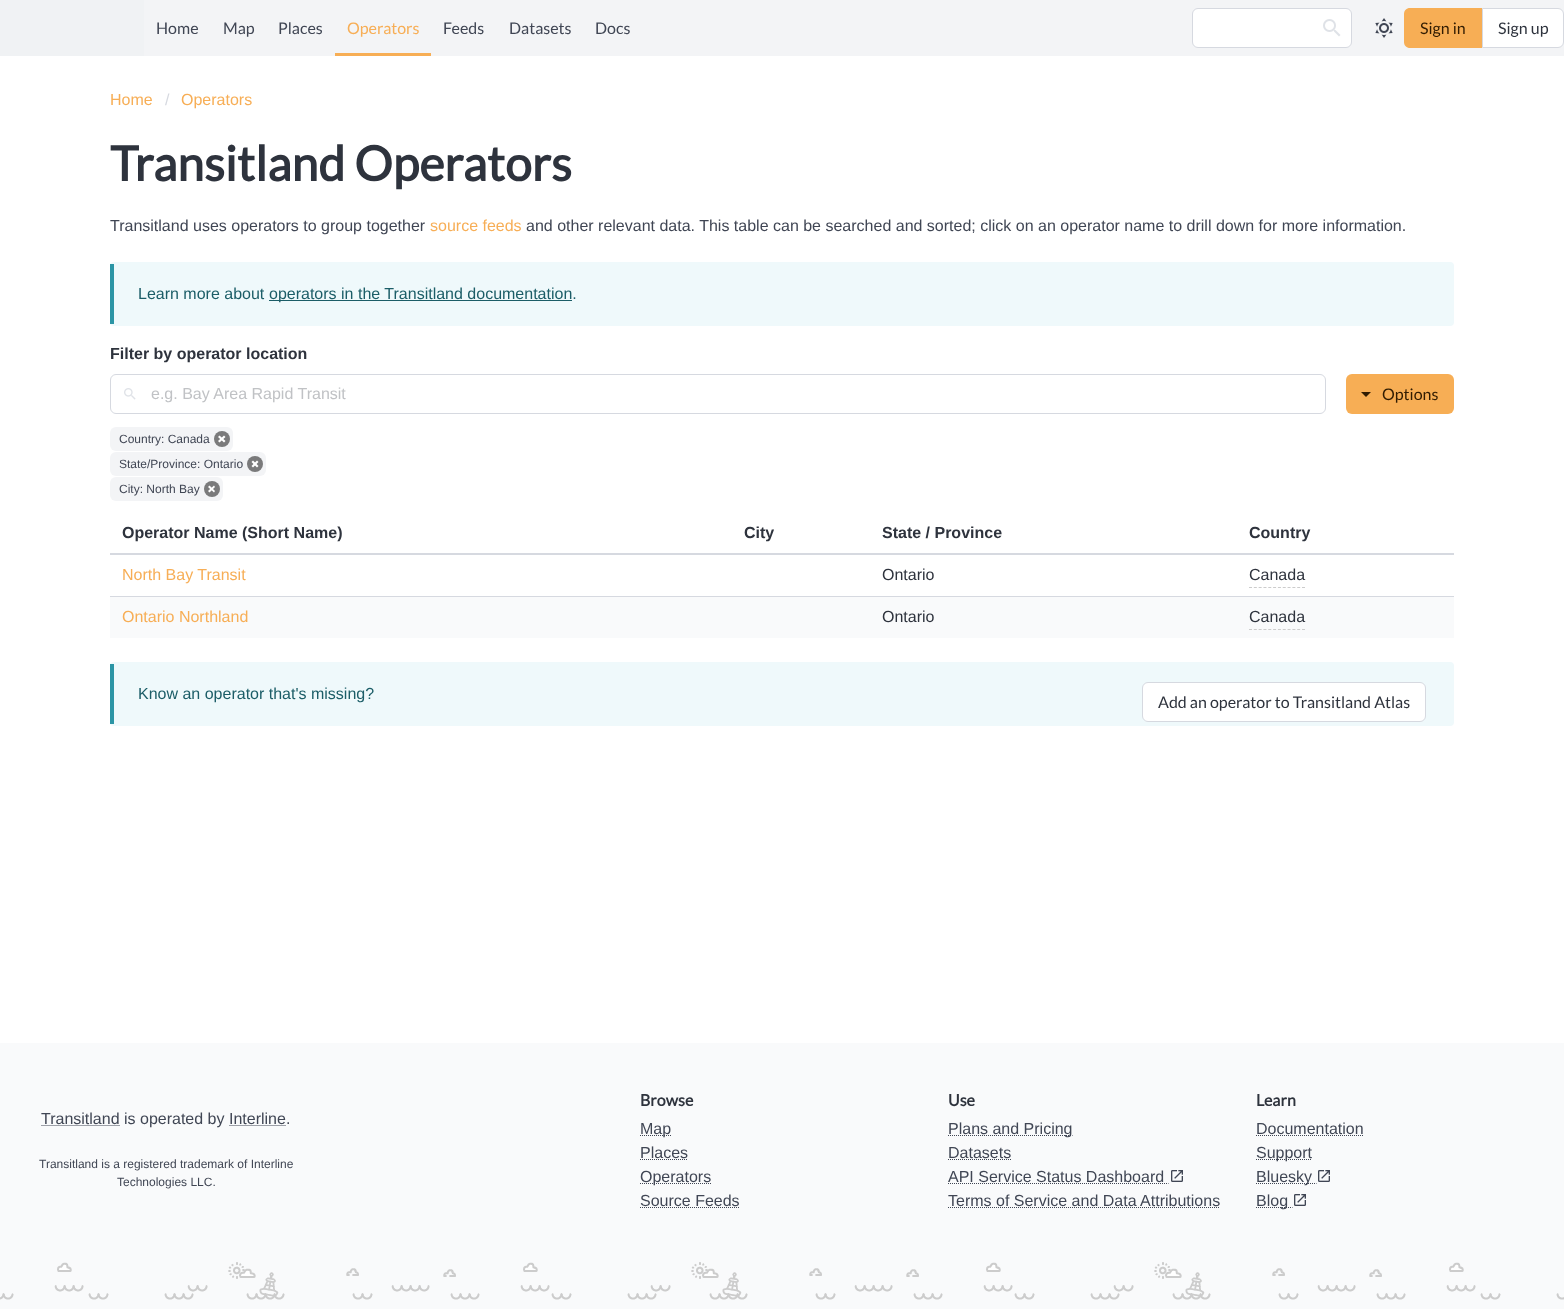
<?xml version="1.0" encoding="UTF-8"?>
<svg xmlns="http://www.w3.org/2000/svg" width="1564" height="1309">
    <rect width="100%" height="100%" fill="#FFFFFF"/>
    <rect x="144" y="0" width="1420" height="56" fill="#F3F4F6"/>
    <rect x="0" y="0" width="144" height="56" fill="#F0F2F4"/>
    <text x="156" y="34" font-family="Lato" font-size="16" fill="#404654">Home</text>
    <text x="223" y="34" font-family="Lato" font-size="16" fill="#404654">Map</text>
    <text x="278" y="34" font-family="Lato" font-size="16" fill="#404654">Places</text>
    <rect x="335" y="53" width="96" height="3" fill="#F7AE55"/>
    <text x="347" y="34" font-family="Lato" font-size="16" fill="#F7AE56">Operators</text>
    <text x="443" y="34" font-family="Lato" font-size="16" fill="#404654">Feeds</text>
    <text x="509" y="34" font-family="Lato" font-size="16" fill="#404654">Datasets</text>
    <text x="595" y="34" font-family="Lato" font-size="16" fill="#404654">Docs</text>
    <rect x="1192.5" y="8.5" width="159" height="39" rx="5.5" fill="#FFFFFF" stroke="#D6D9E0"/>
    <image x="1323" y="19" width="18" height="18" href="img_01.png"/>
    <image x="1375" y="18" width="18" height="20" href="img_02.png"/>
    <path d="M 1410 8 H 1482 V 48 H 1410 C 1406.5 48 1404 45.5 1404 42 V 14 C 1404 10.5 1406.5 8 1410 8 Z" fill="#F7AE55"/>
    <text x="1420" y="34" font-family="Lato" font-size="16" fill="#311C02">Sign in</text>
    <path d="M 1482.5 8.5 H 1558 C 1561 8.5 1563.5 11 1563.5 14 V 42 C 1563.5 45 1561 47.5 1558 47.5 H 1482.5 Z" fill="#FFFFFF" stroke="#D6D9E0"/>
    <text x="1498" y="34" font-family="Lato" font-size="16" fill="#2E333D">Sign up</text>
    <text x="110" y="105" font-family="Liberation Sans" font-size="16" fill="#F7AE56">Home</text>
    <text x="165" y="105" font-family="Liberation Sans" font-size="16" fill="#D6D9E0">/</text>
    <text x="181" y="105" font-family="Liberation Sans" font-size="16" fill="#F7AE56">Operators</text>
    <text x="110" y="181" font-family="Lato" font-size="48" font-weight="700" fill="#2E333D">Transitland Operators</text>
    <text x="110" y="231" font-family="Liberation Sans" font-size="16" fill="#404654">Transitland uses operators to group together</text>
    <text x="430" y="231" font-family="Liberation Sans" font-size="16" fill="#F7AE56">source feeds</text>
    <text x="526" y="231" font-family="Liberation Sans" font-size="16" fill="#404654">and other relevant data. This table can be searched and sorted; click on an operator name to drill down for more information.</text>
    <rect x="110" y="262" width="1344" height="64" rx="4" fill="#EFF9FB"/>
    <rect x="110" y="264" width="4" height="60" fill="#2C95A5"/>
    <text x="138" y="299" font-family="Liberation Sans" font-size="16" fill="#1B5D67">Learn more about</text>
    <rect x="269" y="300" width="303" height="1" fill="#1B5D67"/>
    <text x="269" y="299" font-family="Liberation Sans" font-size="16" fill="#1B5D67">operators in the Transitland documentation.</text>
    <text x="110" y="359" font-family="Liberation Sans" font-size="16" font-weight="700" fill="#2E333D">Filter by operator location</text>
    <rect x="110.5" y="374.5" width="1215" height="39" rx="5.5" fill="none" stroke="#D6D9E0"/>
    <image x="124" y="388" width="12" height="12" href="img_03.png"/>
    <text x="151" y="399" font-family="Liberation Sans" font-size="16" fill="#C0C2C5">e.g. Bay Area Rapid Transit</text>
    <rect x="1346" y="374" width="108" height="40" rx="6" fill="#F7AE55"/>
    <path d="M 1361 392 L 1366 397 L 1371 392 Z" fill="#311C02"/>
    <text x="1382" y="400" font-family="Lato" font-size="16" fill="#311C02">Options</text>
    <rect x="110" y="427" width="123" height="24" rx="6" fill="#F3F4F6"/>
    <text x="119" y="443" font-family="Liberation Sans" font-size="12" fill="#404654">Country: Canada</text>
    <circle cx="222" cy="439" r="8" fill="#7A7A7B"/>
    <path d="M 219.5 435.5 L 225.5 441 L 224 442.5 L 218 437 Z" fill="#FFFFFF"/>
    <path d="M 224 435.5 L 225.5 437 L 219.5 442.5 L 218 441 Z" fill="#FFFFFF"/>
    <rect x="110" y="452" width="156" height="24" rx="6" fill="#F3F4F6"/>
    <text x="119" y="468" font-family="Liberation Sans" font-size="12" fill="#404654">State/Province: Ontario</text>
    <circle cx="255" cy="464" r="8" fill="#7A7A7B"/>
    <path d="M 253 460.5 L 258.5 466 L 257 467.5 L 251.5 462 Z" fill="#FFFFFF"/>
    <path d="M 257 460.5 L 258.5 462 L 253 467.5 L 251.5 466 Z" fill="#FFFFFF"/>
    <rect x="110" y="477" width="113" height="24" rx="6" fill="#F3F4F6"/>
    <text x="119" y="493" font-family="Liberation Sans" font-size="12" fill="#404654">City: North Bay</text>
    <circle cx="212" cy="489" r="8" fill="#7A7A7B"/>
    <path d="M 209.5 485.5 L 215 491 L 214 492.5 L 208 487 Z" fill="#FFFFFF"/>
    <path d="M 214 485.5 L 215 487 L 209.5 492.5 L 208 491 Z" fill="#FFFFFF"/>
    <text x="122" y="538" font-family="Liberation Sans" font-size="16" font-weight="700" fill="#2E333D">Operator Name (Short Name)</text>
    <text x="744" y="538" font-family="Liberation Sans" font-size="16" font-weight="700" fill="#2E333D">City</text>
    <text x="882" y="538" font-family="Liberation Sans" font-size="16" font-weight="700" fill="#2E333D">State / Province</text>
    <rect x="110" y="553" width="1344" height="2" fill="#D6D9E0"/>
    <text x="1249" y="538" font-family="Liberation Sans" font-size="16" font-weight="700" fill="#2E333D">Country</text>
    <text x="122" y="580" font-family="Liberation Sans" font-size="16" fill="#F7AE56">North Bay Transit</text>
    <text x="882" y="580" font-family="Liberation Sans" font-size="16" fill="#2E333D">Ontario</text>
    <rect x="110" y="596" width="1344" height="1" fill="#D6D9E0"/>
    <path d="M 1249 587.5 H 1305" fill="none" stroke="#CCCCCC" stroke-dasharray="3 1.82"/>
    <text x="1249" y="580" font-family="Liberation Sans" font-size="16" fill="#2E333D">Canada</text>
    <rect x="110" y="597" width="1344" height="41" fill="#F9FAFB"/>
    <text x="122" y="622" font-family="Liberation Sans" font-size="16" fill="#F7AE56">Ontario Northland</text>
    <text x="882" y="622" font-family="Liberation Sans" font-size="16" fill="#2E333D">Ontario</text>
    <path d="M 1249 629.5 H 1305" fill="none" stroke="#CCCCCC" stroke-dasharray="3 1.82"/>
    <text x="1249" y="622" font-family="Liberation Sans" font-size="16" fill="#2E333D">Canada</text>
    <rect x="110" y="662" width="1344" height="64" rx="4" fill="#EFF9FB"/>
    <rect x="110" y="664" width="4" height="60" fill="#2C95A5"/>
    <text x="138" y="699" font-family="Liberation Sans" font-size="16" fill="#1B5D67">Know an operator that's missing?</text>
    <rect x="1142.5" y="682.5" width="283" height="39" rx="5.5" fill="#FFFFFF" stroke="#D6D9E0"/>
    <text x="1158" y="708" font-family="Lato" font-size="16" fill="#2E333D">Add an operator to Transitland Atlas</text>
    <rect x="0" y="1043" width="1564" height="266" fill="#F9FAFB"/>
    <image x="0" y="1262" width="1564" height="38" href="img_04.png"/>
    <path d="M 41.5 1125.5 H 120" fill="none" stroke="#404654" stroke-dasharray="1 1"/>
    <text x="41" y="1124" font-family="Liberation Sans" font-size="16" fill="#404654">Transitland is operated by Interline.</text>
    <path d="M 229.5 1125.5 H 286" fill="none" stroke="#404654" stroke-dasharray="1 1"/>
    <text x="39" y="1168" font-family="Liberation Sans" font-size="12" fill="#404654">Transitland is a registered trademark of Interline</text>
    <text x="117" y="1186" font-family="Liberation Sans" font-size="12" fill="#404654">Technologies LLC.</text>
    <text x="640" y="1106" font-family="Lato" font-size="16" font-weight="700" fill="#2E333D">Browse</text>
    <path d="M 640 1135.5 H 671" fill="none" stroke="#404654" stroke-dasharray="1 1"/>
    <text font-family="Liberation Sans" font-size="16" fill="#404654">
        <tspan x="640" y="1134">Map</tspan>
        <tspan x="640" y="1158">Places</tspan>
    </text>
    <path d="M 640 1159.5 H 688" fill="none" stroke="#404654" stroke-dasharray="1 1"/>
    <path d="M 640 1183.5 H 711" fill="none" stroke="#404654" stroke-dasharray="1 1"/>
    <text font-family="Liberation Sans" font-size="16" fill="#404654">
        <tspan x="640" y="1182">Operators</tspan>
        <tspan x="640" y="1206">Source Feeds</tspan>
    </text>
    <path d="M 640 1207.5 H 739.5" fill="none" stroke="#404654" stroke-dasharray="1 1"/>
    <text x="948" y="1106" font-family="Lato" font-size="16" font-weight="700" fill="#2E333D">Use</text>
    <path d="M 948 1135.5 H 1072.5" fill="none" stroke="#404654" stroke-dasharray="1 1"/>
    <text font-family="Liberation Sans" font-size="16" fill="#404654">
        <tspan x="948" y="1134">Plans and Pricing</tspan>
        <tspan x="948" y="1158">Datasets</tspan>
    </text>
    <path d="M 948 1159.5 H 1011" fill="none" stroke="#404654" stroke-dasharray="1 1"/>
    <text x="948" y="1182" font-family="Liberation Sans" font-size="16" fill="#404654">API Service Status Dashboard</text>
    <path d="M 948 1183.5 H 1168.5" fill="none" stroke="#404654" stroke-dasharray="1 1"/>
    <image x="1171" y="1170" width="12" height="12" href="img_05.png"/>
    <text x="948" y="1206" font-family="Liberation Sans" font-size="16" fill="#404654">Terms of Service and Data Attributions</text>
    <path d="M 948 1207.5 H 1220" fill="none" stroke="#404654" stroke-dasharray="1 1"/>
    <text x="1256" y="1106" font-family="Lato" font-size="16" font-weight="700" fill="#2E333D">Learn</text>
    <text x="1256" y="1134" font-family="Liberation Sans" font-size="16" fill="#404654">Documentation</text>
    <path d="M 1256 1135.5 H 1363.5" fill="none" stroke="#404654" stroke-dasharray="1 1"/>
    <path d="M 1256 1159.5 H 1312" fill="none" stroke="#404654" stroke-dasharray="1 1"/>
    <text x="1256" y="1158" font-family="Liberation Sans" font-size="16" fill="#404654">Support</text>
    <path d="M 1256 1183.5 H 1316.5" fill="none" stroke="#404654" stroke-dasharray="1 1"/>
    <text x="1256" y="1182" font-family="Liberation Sans" font-size="16" fill="#404654">Bluesky</text>
    <image x="1318" y="1170" width="12" height="12" href="img_05.png"/>
    <path d="M 1256 1207.5 H 1292.5" fill="none" stroke="#404654" stroke-dasharray="1 1"/>
    <text x="1256" y="1206" font-family="Liberation Sans" font-size="16" fill="#404654">Blog</text>
    <image x="1294" y="1194" width="12" height="12" href="img_05.png"/>
</svg>
